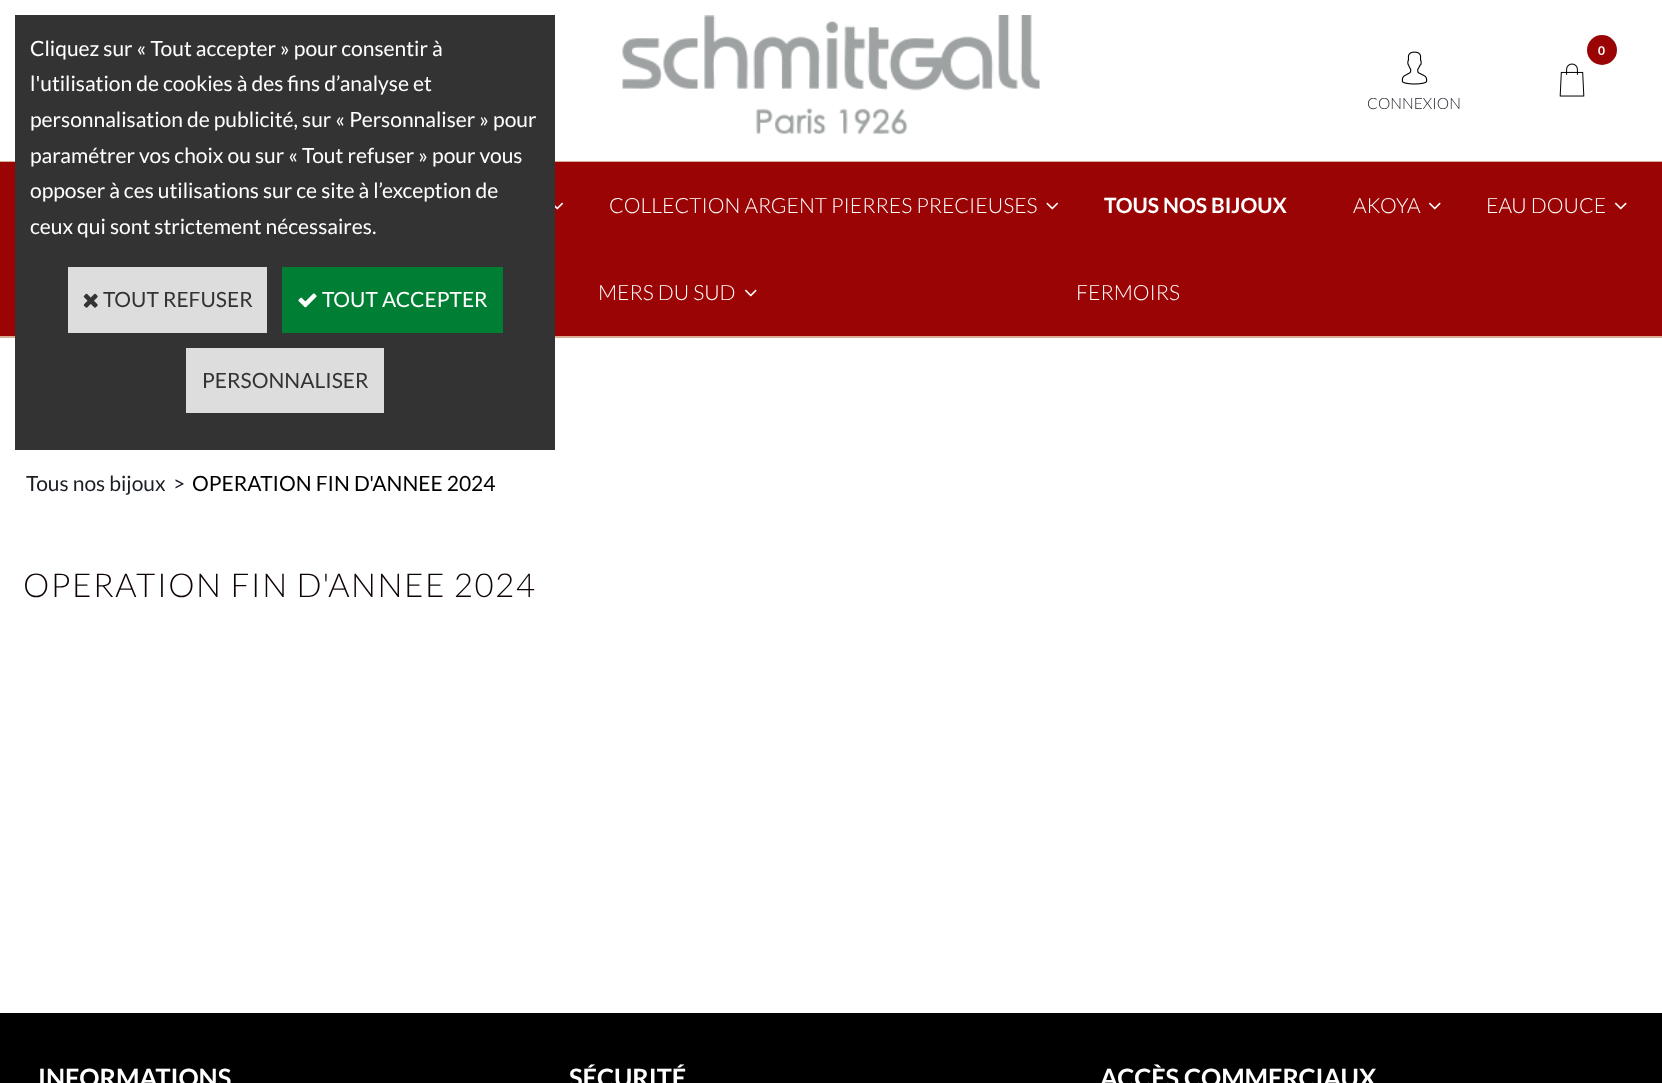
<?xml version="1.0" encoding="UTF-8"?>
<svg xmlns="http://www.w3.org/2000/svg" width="1662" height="1083">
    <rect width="100%" height="100%" fill="#FFFFFF"/>
    <rect x="0" y="161" width="1662" height="1" fill="#D9AE96"/>
    <rect x="0" y="336" width="1662" height="2" fill="#D9AE96"/>
    <rect x="0" y="162" width="1662" height="174" fill="#9A0404"/>
    <rect x="15" y="15" width="540" height="435" fill="#333333"/>
    <text font-family="Lato" font-size="21" fill="#FFFFFF">
        <tspan x="30" y="56">Cliquez sur « Tout accepter » pour consentir à</tspan>
        <tspan x="30" y="91">l'utilisation de cookies à des fins d’analyse et</tspan>
        <tspan x="30" y="127">personnalisation de publicité, sur « Personnaliser » pour</tspan>
        <tspan x="30" y="163">paramétrer vos choix ou sur « Tout refuser » pour vous</tspan>
        <tspan x="30" y="198">opposer à ces utilisations sur ce site à l’exception de</tspan>
        <tspan x="30" y="234">ceux qui sont strictement nécessaires.</tspan>
    </text>
    <rect x="68" y="267" width="199" height="66" fill="#DDDDDD"/>
    <image x="83" y="293" width="15" height="15" href="img_01.png"/>
    <text x="103" y="307" font-family="Lato" font-size="21" fill="#333333">TOUT REFUSER</text>
    <rect x="282" y="267" width="221" height="66" fill="#007E33"/>
    <image x="298" y="293" width="19" height="15" href="img_02.png"/>
    <text x="322" y="307" font-family="Lato" font-size="21" fill="#FFFFFF">TOUT ACCEPTER</text>
    <rect x="186" y="348" width="198" height="65" fill="#DDDDDD"/>
    <text x="202" y="388" font-family="Lato" font-size="21" fill="#333333">PERSONNALISER</text>
    <image x="622" y="15" width="418" height="120" href="img_03.png"/>
    <circle cx="1602" cy="50" r="15" fill="#9A0404"/>
    <text x="1598" y="55" font-family="Lato" font-size="12" font-weight="700" fill="#FFFFFF">0</text>
    <image x="1559" y="63" width="26" height="34" href="img_04.png"/>
    <image x="1401" y="51" width="27" height="34" href="img_05.png"/>
    <text x="1367" y="109" font-family="Lato" font-size="15.5" font-weight="300" fill="#1A1F26">CONNEXION</text>
    <image x="555" y="202" width="9" height="8" href="img_06.png"/>
    <text x="609" y="213" font-family="Lato" font-size="21" font-weight="300" fill="#FFFFFF">COLLECTION ARGENT PIERRES PRECIEUSES</text>
    <image x="1046" y="202" width="13" height="8" href="img_07.png"/>
    <text x="1104" y="213" font-family="Lato" font-size="21" font-weight="700" fill="#FFFFFF">TOUS NOS BIJOUX</text>
    <text x="1353" y="213" font-family="Lato" font-size="21" font-weight="300" fill="#FFFFFF">AKOYA</text>
    <image x="1428" y="202" width="13" height="8" href="img_08.png"/>
    <text x="1486" y="213" font-family="Lato" font-size="21" font-weight="300" fill="#FFFFFF">EAU DOUCE</text>
    <image x="1614" y="202" width="13" height="8" href="img_08.png"/>
    <text x="598" y="300" font-family="Lato" font-size="21" font-weight="300" fill="#FFFFFF">MERS DU SUD</text>
    <image x="744" y="289" width="13" height="8" href="img_08.png"/>
    <text x="1076" y="300" font-family="Lato" font-size="21" font-weight="300" fill="#FFFFFF">FERMOIRS</text>
    <text x="26" y="491" font-family="Lato" font-size="21" fill="#1A1F26">Tous nos bijoux</text>
    <text x="173" y="491" font-family="Lato" font-size="21" fill="#1A1F26">&gt;</text>
    <text x="192" y="491" font-family="Lato" font-size="21" fill="#000000">OPERATION FIN D'ANNEE 2024</text>
    <text x="23" y="597" font-family="Lato" font-size="33" font-weight="300" letter-spacing="1.5" fill="#0F0404">OPERATION FIN D'ANNEE 2024</text>
    <rect x="0" y="1013" width="1662" height="70" fill="#000000"/>
    <text x="38" y="1087" font-family="Lato" font-size="25.25" font-weight="700" fill="#FFFFFF">INFORMATIONS</text>
    <text x="569" y="1087" font-family="Lato" font-size="25.25" font-weight="700" fill="#FFFFFF">SÉCURITÉ</text>
    <text x="1100" y="1087" font-family="Lato" font-size="25.25" font-weight="700" fill="#FFFFFF">ACCÈS COMMERCIAUX</text>
</svg>
